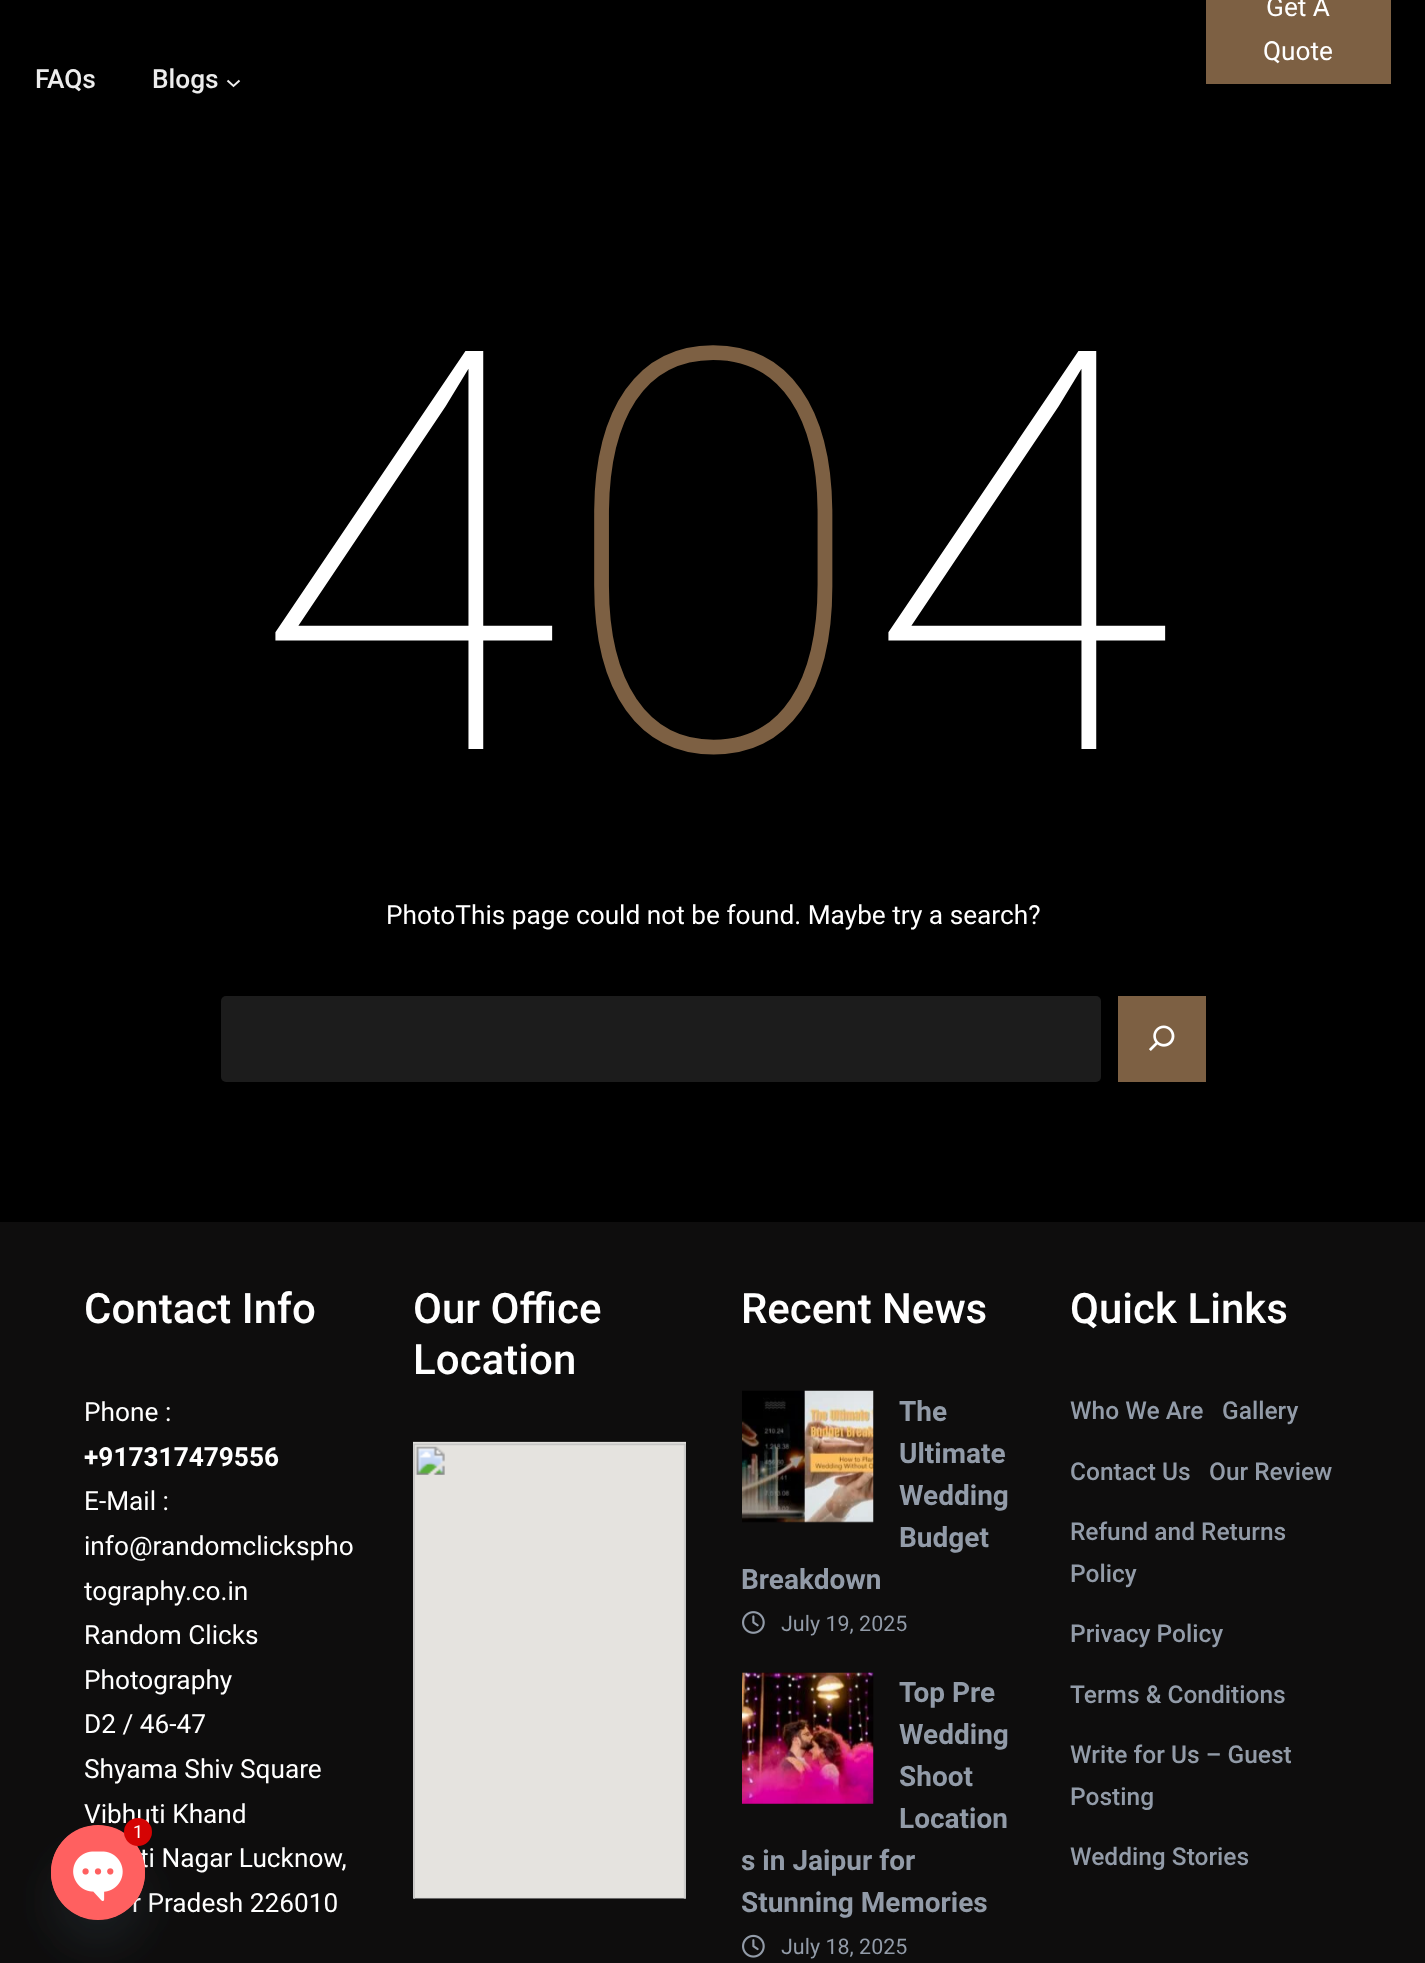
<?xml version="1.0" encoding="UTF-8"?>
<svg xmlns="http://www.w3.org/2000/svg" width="1425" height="1963">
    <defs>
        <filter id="blur1" x="-50%" y="-200%" width="200%" height="500%"><feGaussianBlur stdDeviation="21"/></filter>
    </defs>
    <rect width="100%" height="100%" fill="#000000"/>
    <rect x="1206" y="0" width="185" height="84" fill="#7D6043"/>
    <text x="1266" y="16" font-family="Roboto" font-size="26.25" fill="#FFFFFF">Get A</text>
    <text x="1263" y="60" font-family="Roboto" font-size="26.25" fill="#FFFFFF">Quote</text>
    <text x="35" y="88" font-family="Roboto" font-size="26.25" font-weight="500" fill="#EDEDED">FAQs</text>
    <text x="152" y="88" font-family="Roboto" font-size="26.25" font-weight="500" fill="#EDEDED">Blogs</text>
    <path d="M 227.5 80.5 L 233.5 86 L 239.5 80.5" fill="none" stroke="#EDEDED" stroke-width="2"/>
    <text x="253" y="749" font-family="Roboto" font-size="560" font-weight="100" fill="#FFFFFF">4</text>
    <text x="560" y="749" font-family="Roboto" font-size="560" font-weight="100" fill="#7D6043">0</text>
    <text x="866" y="749" font-family="Roboto" font-size="560" font-weight="100" fill="#FFFFFF">4</text>
    <text x="386" y="924" font-family="Roboto" font-size="26.25" fill="#FFFFFF">PhotoThis page could not be found. Maybe try a search?</text>
    <rect x="221" y="996" width="880" height="86" rx="5" fill="#1C1C1C"/>
    <rect x="1118" y="996" width="88" height="86" fill="#7D6043"/>
    <image x="1149" y="1025" width="26" height="26" href="img_01.png"/>
    <rect x="0" y="1222" width="1425" height="741" fill="#0E0D0D"/>
    <text x="84" y="1323" font-family="Roboto" font-size="42" font-weight="500" fill="#FFFFFF">Contact Info</text>
    <text x="84" y="1421" font-family="Roboto" font-size="26.25" fill="#FFFFFF">Phone :</text>
    <text x="84" y="1466" font-family="Roboto" font-size="26.25" font-weight="700" fill="#FFFFFF">+917317479556</text>
    <text font-family="Roboto" font-size="26.25" fill="#FFFFFF">
        <tspan x="84" y="1510">E-Mail :</tspan>
        <tspan x="84" y="1555">info@randomclickspho</tspan>
        <tspan x="84" y="1600">tography.co.in</tspan>
        <tspan x="84" y="1644">Random Clicks</tspan>
        <tspan x="84" y="1689">Photography</tspan>
        <tspan x="84" y="1733">D2 / 46-47</tspan>
        <tspan x="84" y="1778">Shyama Shiv Square</tspan>
        <tspan x="84" y="1823">Vibhuti Khand</tspan>
    </text>
    <text x="140" y="1867" font-family="Roboto" font-size="26.25" fill="#FFFFFF">ti Nagar Lucknow,</text>
    <text x="132" y="1912" font-family="Roboto" font-size="26.25" fill="#FFFFFF">r Pradesh 226010</text>
    <text font-family="Roboto" font-size="42" font-weight="500" fill="#FFFFFF">
        <tspan x="413" y="1323">Our Office</tspan>
        <tspan x="413" y="1374">Location</tspan>
    </text>
    <image x="413" y="1441" width="273" height="458" href="img_02.png"/>
    <text x="741" y="1323" font-family="Roboto" font-size="42" font-weight="500" fill="#FFFFFF">Recent News</text>
    <image x="742" y="1390" width="132" height="133" href="img_03.png"/>
    <text font-family="Roboto" font-size="28" font-weight="700" fill="#929BA8">
        <tspan x="899" y="1421">The</tspan>
        <tspan x="899" y="1463">Ultimate</tspan>
        <tspan x="899" y="1505">Wedding</tspan>
        <tspan x="899" y="1547">Budget</tspan>
    </text>
    <text x="741" y="1589" font-family="Roboto" font-size="28" font-weight="700" fill="#929BA8">Breakdown</text>
    <image x="742" y="1611" width="23" height="23" href="img_04.png"/>
    <text x="781" y="1631" font-family="Roboto" font-size="21.5" fill="#929BA8">July 19, 2025</text>
    <image x="742" y="1672" width="132" height="132" href="img_05.png"/>
    <text font-family="Roboto" font-size="28" font-weight="700" fill="#929BA8">
        <tspan x="899" y="1702">Top Pre</tspan>
        <tspan x="899" y="1744">Wedding</tspan>
        <tspan x="899" y="1786">Shoot</tspan>
        <tspan x="899" y="1828">Location</tspan>
    </text>
    <text font-family="Roboto" font-size="28" font-weight="700" fill="#929BA8">
        <tspan x="741" y="1870">s in Jaipur for</tspan>
        <tspan x="741" y="1912">Stunning Memories</tspan>
    </text>
    <image x="742" y="1934" width="23" height="24" href="img_06.png"/>
    <text x="781" y="1954" font-family="Roboto" font-size="21.5" fill="#929BA8">July 18, 2025</text>
    <text x="1070" y="1323" font-family="Roboto" font-size="42" font-weight="500" fill="#FFFFFF">Quick Links</text>
    <text x="1070" y="1419" font-family="Roboto" font-size="24.5" font-weight="500" fill="#929BA8">Who We Are</text>
    <text x="1222" y="1419" font-family="Roboto" font-size="24.5" font-weight="500" fill="#929BA8">Gallery</text>
    <text x="1070" y="1480" font-family="Roboto" font-size="24.5" font-weight="500" fill="#929BA8">Contact Us</text>
    <text x="1209" y="1480" font-family="Roboto" font-size="24.5" font-weight="500" fill="#929BA8">Our Review</text>
    <text font-family="Roboto" font-size="24.5" font-weight="500" fill="#929BA8">
        <tspan x="1070" y="1540">Refund and Returns</tspan>
        <tspan x="1070" y="1582">Policy</tspan>
    </text>
    <text x="1070" y="1642" font-family="Roboto" font-size="24.5" font-weight="500" fill="#929BA8">Privacy Policy</text>
    <text x="1070" y="1703" font-family="Roboto" font-size="24.5" font-weight="500" fill="#929BA8">Terms &amp; Conditions</text>
    <text font-family="Roboto" font-size="24.5" font-weight="500" fill="#929BA8">
        <tspan x="1070" y="1763">Write for Us – Guest</tspan>
        <tspan x="1070" y="1805">Posting</tspan>
    </text>
    <text x="1070" y="1865" font-family="Roboto" font-size="24.5" font-weight="500" fill="#929BA8">Wedding Stories</text>
    <rect x="51" y="1853" width="94" height="95" rx="47" fill="#49687E" fill-opacity="0.16" filter="url(#blur1)"/>
    <rect x="51" y="1825" width="94" height="95" rx="47" fill="#FF6060"/>
    <image x="51" y="1825" width="94" height="95" href="img_07.png"/>
    <circle cx="138" cy="1832" r="14" fill="#D50404"/>
    <text x="133" y="1838" font-family="Roboto" font-size="18" fill="#FFFFFF">1</text>
</svg>
